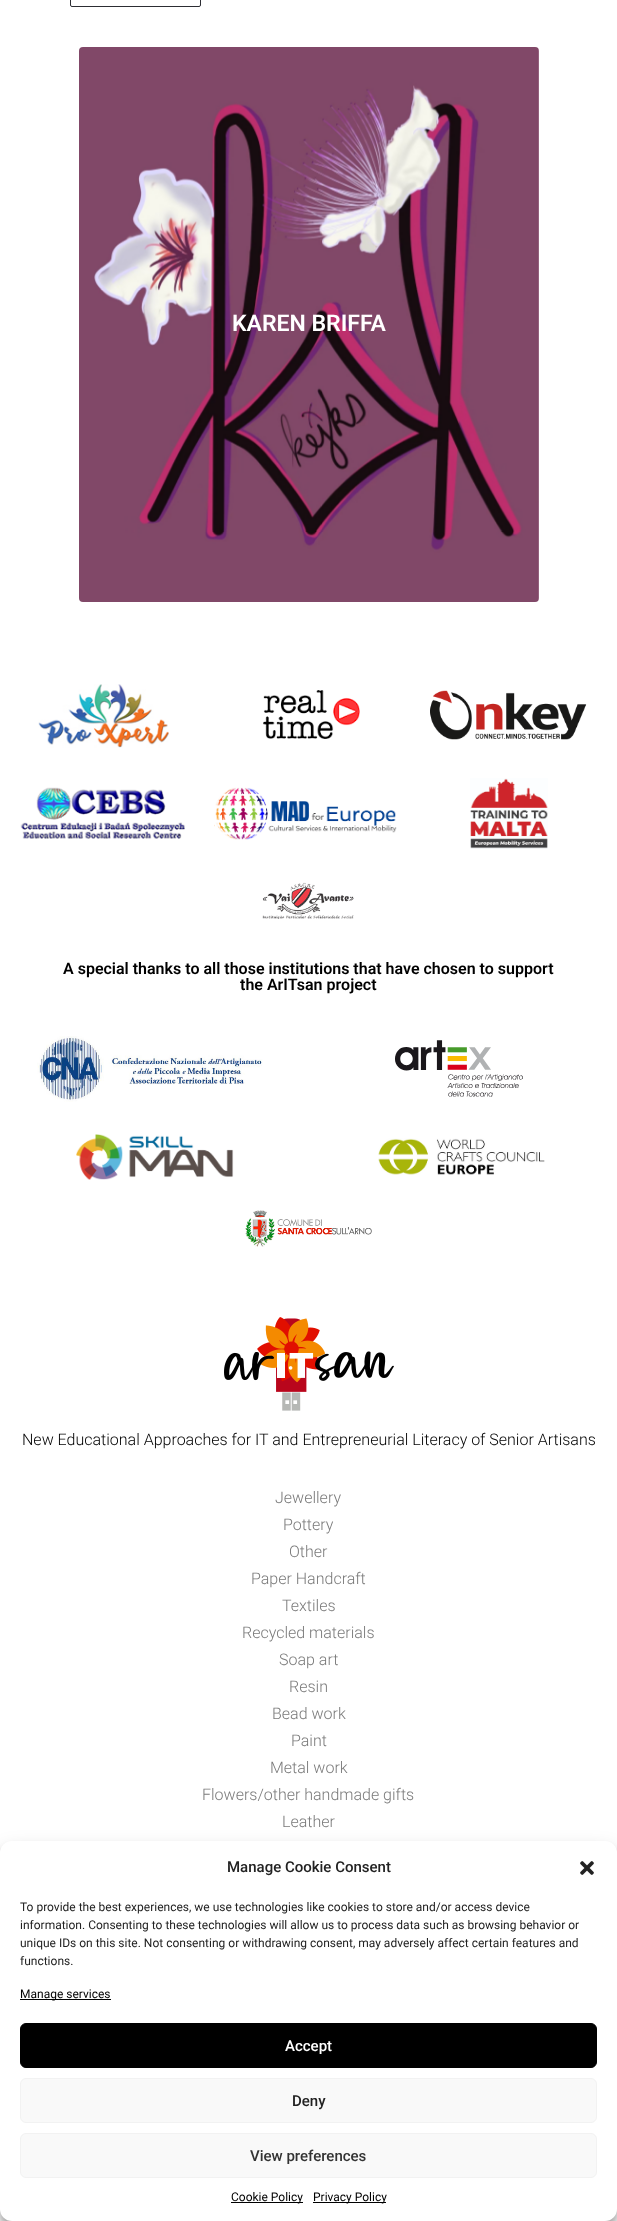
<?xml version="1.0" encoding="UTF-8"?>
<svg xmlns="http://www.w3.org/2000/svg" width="617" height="2221">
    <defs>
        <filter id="blur1" x="-50%" y="-200%" width="200%" height="500%"><feGaussianBlur stdDeviation="3"/></filter>
        <filter id="blur2" x="-50%" y="-200%" width="200%" height="500%"><feGaussianBlur stdDeviation="10"/></filter>
    </defs>
    <rect width="100%" height="100%" fill="#FFFFFF"/>
    <rect x="70.5" y="-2.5" width="130" height="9" rx="1.5" fill="none" stroke="#2C2D33"/>
    <image x="79" y="47" width="460" height="555" href="img_01.png"/>
    <text x="232" y="331" font-family="Roboto" font-size="23" font-weight="600" fill="#FFFFFF">KAREN BRIFFA</text>
    <image x="38" y="684" width="131" height="64" href="img_02.png"/>
    <image x="263" y="690" width="97" height="49" href="img_03.png"/>
    <image x="430" y="690" width="157" height="50" href="img_04.png"/>
    <image x="20" y="787" width="165" height="52" href="img_05.png"/>
    <image x="214" y="787" width="183" height="53" href="img_06.png"/>
    <image x="470" y="778" width="78" height="71" href="img_07.png"/>
    <image x="262" y="882" width="92" height="37" href="img_08.png"/>
    <text x="63" y="974" font-family="Roboto" font-size="16" font-weight="600" fill="#000000">A special thanks to all those institutions that have chosen to support</text>
    <text x="240" y="990" font-family="Roboto" font-size="16" font-weight="600" fill="#000000">the ArITsan project</text>
    <image x="37" y="1036" width="226" height="66" href="img_09.png"/>
    <image x="395" y="1040" width="128" height="57" href="img_10.png"/>
    <image x="76" y="1134" width="158" height="46" href="img_11.png"/>
    <image x="378" y="1138" width="167" height="37" href="img_12.png"/>
    <image x="245" y="1210" width="127" height="37" href="img_13.png"/>
    <image x="224" y="1317" width="170" height="94" href="img_14.png"/>
    <text x="22" y="1445" font-family="Roboto" font-size="16" font-weight="300" fill="#000000">New Educational Approaches for IT and Entrepreneurial Literacy of Senior Artisans</text>
    <text x="275" y="1503" font-family="Roboto" font-size="16" font-weight="300" fill="#7A7A7A">Jewellery</text>
    <text x="283" y="1530" font-family="Roboto" font-size="16" font-weight="300" fill="#7A7A7A">Pottery</text>
    <text x="289" y="1557" font-family="Roboto" font-size="16" font-weight="300" fill="#7A7A7A">Other</text>
    <text x="251" y="1584" font-family="Roboto" font-size="16" font-weight="300" fill="#7A7A7A">Paper Handcraft</text>
    <text x="282" y="1611" font-family="Roboto" font-size="16" font-weight="300" fill="#7A7A7A">Textiles</text>
    <text x="242" y="1638" font-family="Roboto" font-size="16" font-weight="300" fill="#7A7A7A">Recycled materials</text>
    <text x="279" y="1665" font-family="Roboto" font-size="16" font-weight="300" fill="#7A7A7A">Soap art</text>
    <text x="289" y="1692" font-family="Roboto" font-size="16" font-weight="300" fill="#7A7A7A">Resin</text>
    <text x="272" y="1719" font-family="Roboto" font-size="16" font-weight="300" fill="#7A7A7A">Bead work</text>
    <text x="291" y="1746" font-family="Roboto" font-size="16" font-weight="300" fill="#7A7A7A">Paint</text>
    <text x="270" y="1773" font-family="Roboto" font-size="16" font-weight="300" fill="#7A7A7A">Metal work</text>
    <text x="202" y="1800" font-family="Roboto" font-size="16" font-weight="300" fill="#7A7A7A">Flowers/other handmade gifts</text>
    <text x="282" y="1827" font-family="Roboto" font-size="16" font-weight="300" fill="#7A7A7A">Leather</text>
    <rect x="0" y="1847" width="617" height="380" rx="12" fill="#000000" fill-opacity="0.23" filter="url(#blur1)"/>
    <rect x="0" y="1851" width="617" height="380" rx="12" fill="#000000" fill-opacity="0.19" filter="url(#blur2)"/>
    <rect x="0" y="1841" width="617" height="380" rx="12" fill="#FFFFFF"/>
    <text x="227" y="1872" font-family="Roboto" font-size="15" font-weight="500" fill="#222222">Manage Cookie Consent</text>
    <image x="580" y="1861" width="14" height="14" href="img_15.png"/>
    <text font-family="Roboto" font-size="12" fill="#222222">
        <tspan x="20" y="1911">To provide the best experiences, we use technologies like cookies to store and/or access device</tspan>
        <tspan x="20" y="1929">information. Consenting to these technologies will allow us to process data such as browsing behavior or</tspan>
        <tspan x="20" y="1947">unique IDs on this site. Not consenting or withdrawing consent, may adversely affect certain features and</tspan>
        <tspan x="20" y="1965">functions.</tspan>
    </text>
    <rect x="20" y="1999" width="91" height="1" fill="#000000"/>
    <text x="20" y="1998" font-family="Roboto" font-size="12" fill="#000000">Manage services</text>
    <rect x="20.5" y="2023.5" width="576" height="44" rx="5.5" fill="#000000" stroke="#000000"/>
    <text x="285" y="2051" font-family="Roboto" font-size="15" font-weight="500" fill="#FFFFFF">Accept</text>
    <rect x="20.5" y="2078.5" width="576" height="44" rx="5.5" fill="#F9F9F9" stroke="#F2F2F2"/>
    <text x="292" y="2106" font-family="Roboto" font-size="15" font-weight="500" fill="#222222">Deny</text>
    <rect x="20.5" y="2133.5" width="576" height="44" rx="5.5" fill="#F9F9F9" stroke="#F2F2F2"/>
    <text x="250" y="2161" font-family="Roboto" font-size="15" font-weight="500" fill="#333333">View preferences</text>
    <rect x="231" y="2202" width="72" height="1" fill="#000000"/>
    <text x="231" y="2201" font-family="Roboto" font-size="12" fill="#000000">Cookie Policy</text>
    <rect x="313" y="2202" width="73" height="1" fill="#000000"/>
    <text x="313" y="2201" font-family="Roboto" font-size="12" fill="#000000">Privacy Policy</text>
</svg>
